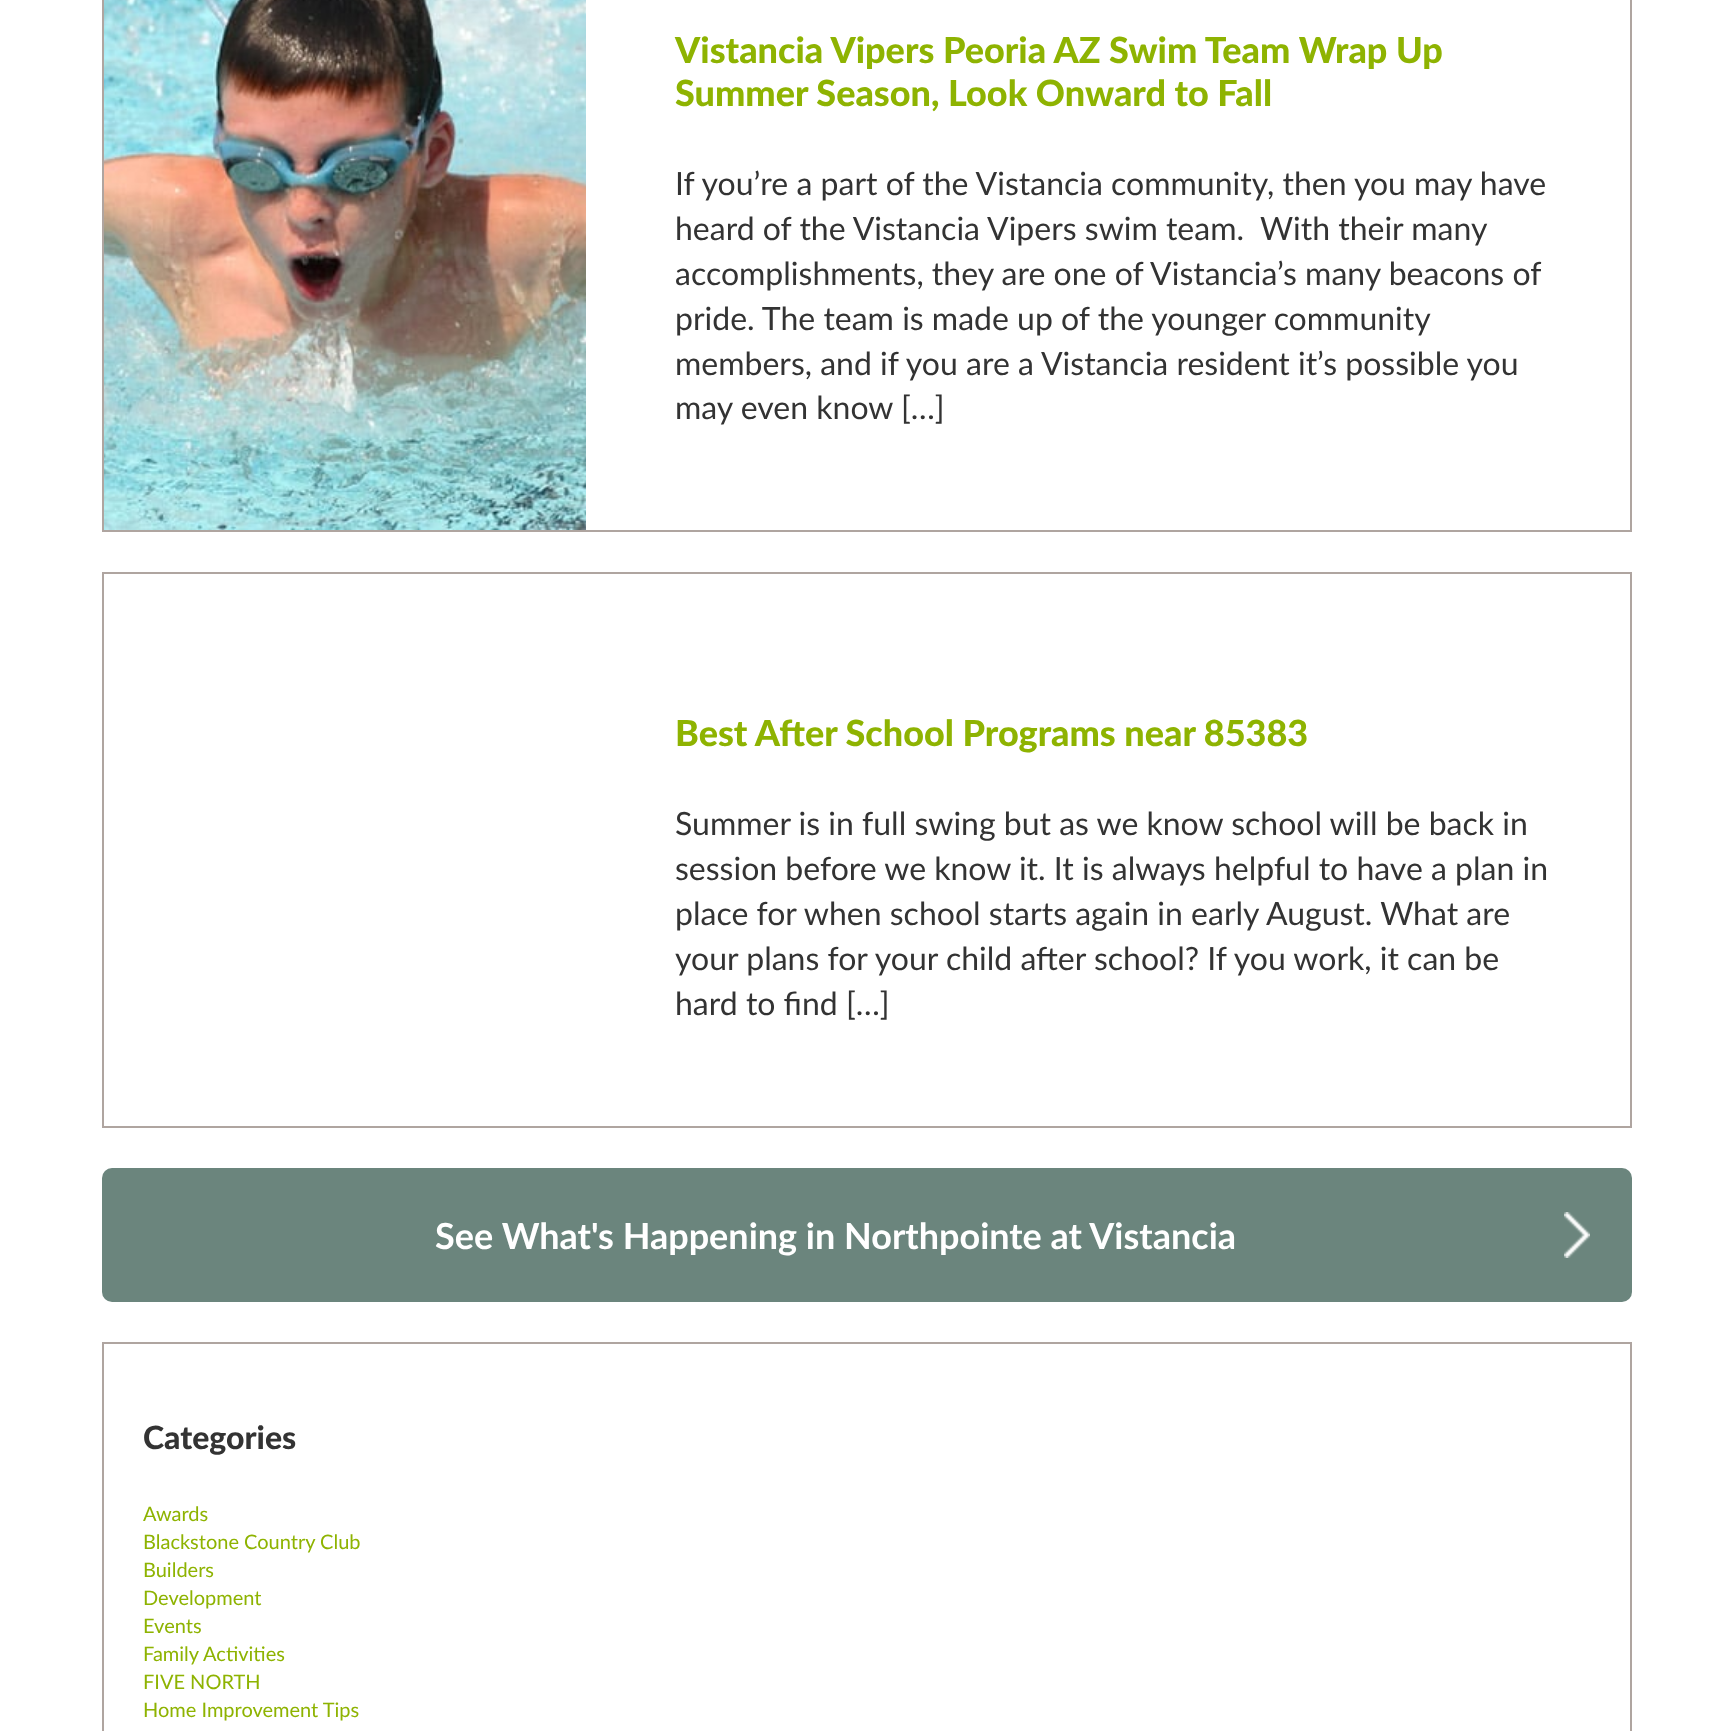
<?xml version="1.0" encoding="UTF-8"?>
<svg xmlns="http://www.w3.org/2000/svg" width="1731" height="1731">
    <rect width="100%" height="100%" fill="#FFFFFF"/>
    <rect x="103" y="-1" width="1528" height="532" fill="none" stroke="#AFA5A0" stroke-width="2"/>
    <image x="104" y="0" width="482" height="530" href="img_01.png"/>
    <text font-family="Lato" font-size="36" font-weight="900" fill="#8EB301">
        <tspan x="675" y="63">Vistancia Vipers Peoria AZ Swim Team Wrap Up</tspan>
        <tspan x="675" y="106">Summer Season, Look Onward to Fall</tspan>
    </text>
    <text font-family="Lato" font-size="32" fill="#333333" xml:space="preserve"><tspan x="675" y="195">If you’re a part of the Vistancia community, then you may have</tspan><tspan x="675" y="240">heard of the Vistancia Vipers swim team.  With their many</tspan><tspan x="675" y="285">accomplishments, they are one of Vistancia’s many beacons of</tspan><tspan x="675" y="330">pride. The team is made up of the younger community</tspan><tspan x="675" y="375">members, and if you are a Vistancia resident it’s possible you</tspan><tspan x="675" y="419">may even know […]</tspan></text>
    <rect x="103" y="573" width="1528" height="554" fill="none" stroke="#AFA5A0" stroke-width="2"/>
    <text x="675" y="746" font-family="Lato" font-size="36" font-weight="900" fill="#8EB301">Best After School Programs near 85383</text>
    <text font-family="Lato" font-size="32" fill="#333333">
        <tspan x="675" y="835">Summer is in full swing but as we know school will be back in</tspan>
        <tspan x="675" y="880">session before we know it. It is always helpful to have a plan in</tspan>
        <tspan x="675" y="925">place for when school starts again in early August. What are</tspan>
        <tspan x="675" y="970">your plans for your child after school? If you work, it can be</tspan>
        <tspan x="675" y="1015">hard to find […]</tspan>
    </text>
    <rect x="102" y="1168" width="1530" height="134" rx="10" fill="#6B857D"/>
    <text x="435" y="1249" font-family="Lato" font-size="36" font-weight="700" fill="#FFFFFF">See What's Happening in Northpointe at Vistancia</text>
    <image x="1564" y="1212" width="26" height="46" href="img_02.png"/>
    <rect x="103" y="1343" width="1528" height="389" fill="none" stroke="#AFA5A0" stroke-width="2"/>
    <text x="143" y="1449" font-family="Lato" font-size="32" font-weight="900" fill="#333333">Categories</text>
    <text font-family="Lato" font-size="20" fill="#8EB301">
        <tspan x="143" y="1521">Awards</tspan>
        <tspan x="143" y="1549">Blackstone Country Club</tspan>
        <tspan x="143" y="1577">Builders</tspan>
        <tspan x="143" y="1605">Development</tspan>
        <tspan x="143" y="1633">Events</tspan>
        <tspan x="143" y="1661">Family Activities</tspan>
        <tspan x="143" y="1689">FIVE NORTH</tspan>
        <tspan x="143" y="1717">Home Improvement Tips</tspan>
    </text>
</svg>
